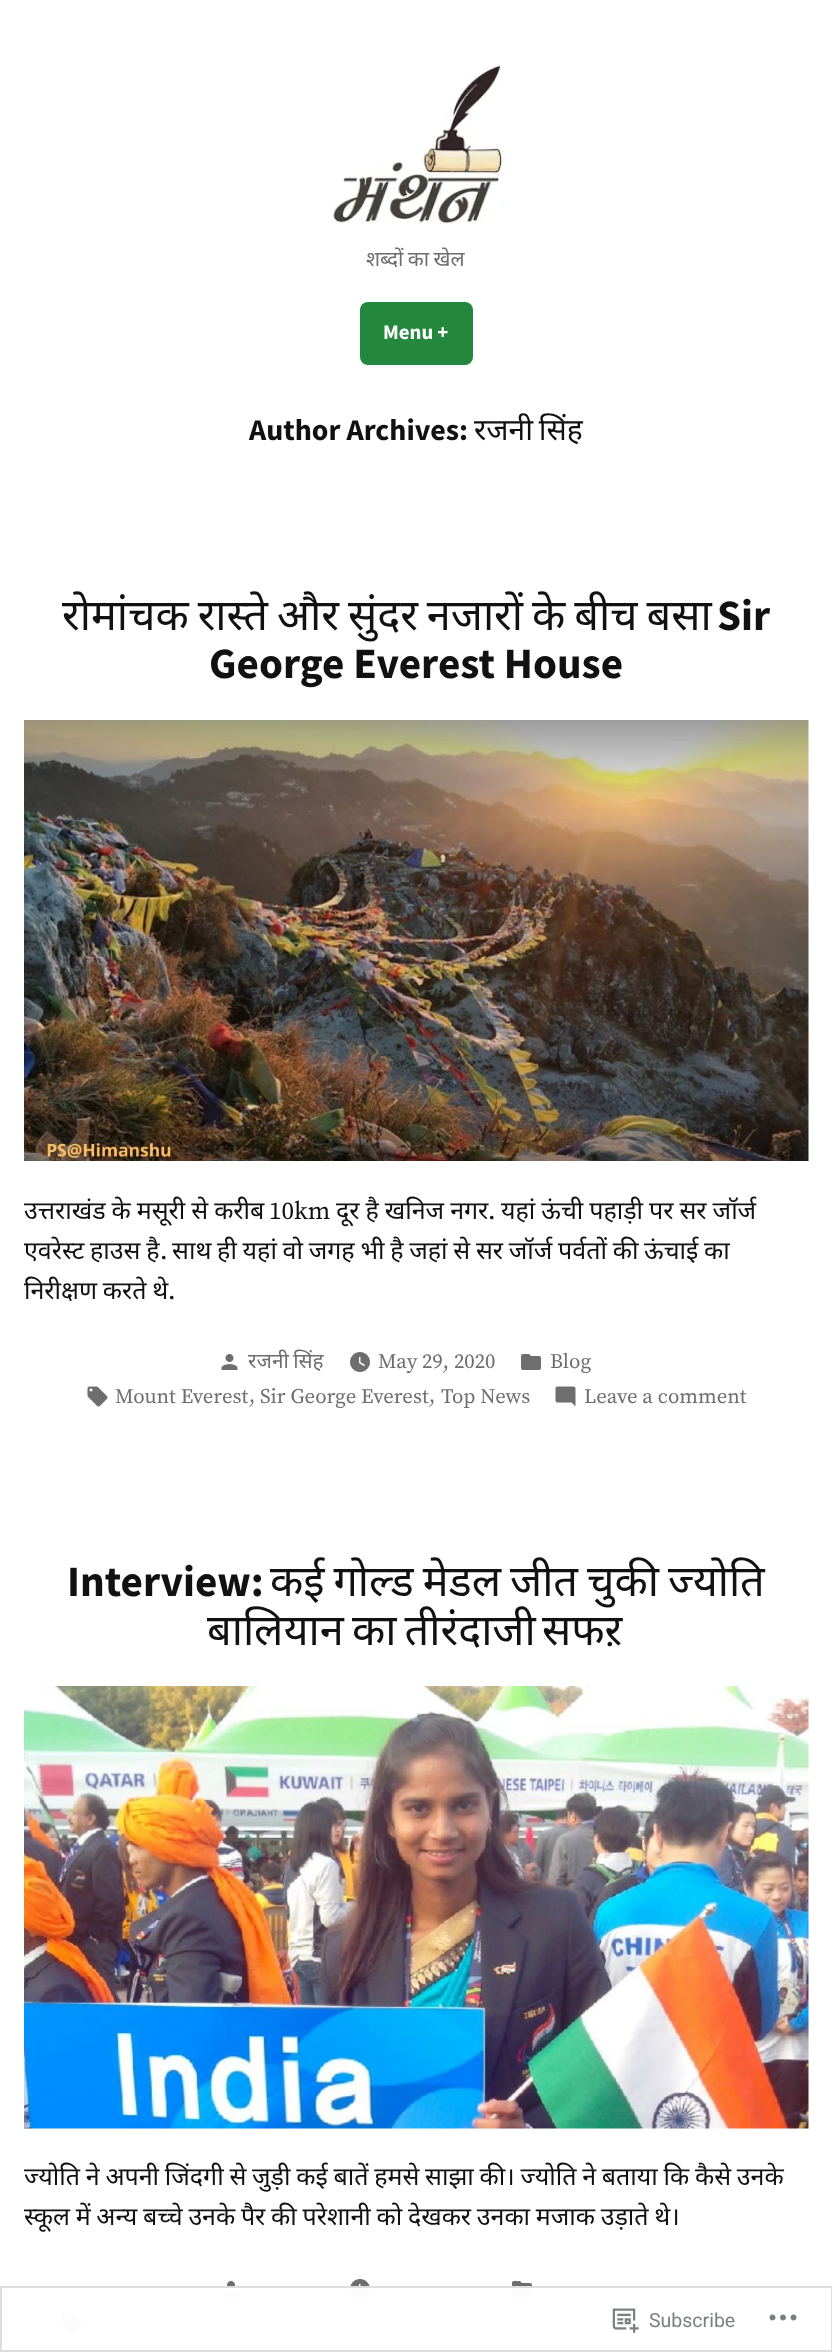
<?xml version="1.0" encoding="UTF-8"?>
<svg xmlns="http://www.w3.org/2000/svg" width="832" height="2352">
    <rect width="100%" height="100%" fill="#FFFFFF"/>
    <image x="333" y="65" width="172" height="159" href="img_01.png"/>
    <text x="366" y="266" word-spacing="-1" font-family="Noto Sans" font-size="20.75" fill="#6E6E6E">शब्दों का खेल</text>
    <rect x="360" y="302" width="113" height="63" rx="8" fill="#23883D"/>
    <text x="383" y="339" font-family="Source Sans Pro" font-size="20.75" font-weight="700" fill="#FFFFFF">Menu +</text>
    <text x="249" y="440" font-family="Source Sans Pro" font-size="30" font-weight="700" fill="#111111">Author Archives:</text>
    <text x="474" y="440" word-spacing="-2" font-family="Noto Sans" font-size="30" fill="#111111">रजनी सिंह</text>
    <text x="62" y="630" word-spacing="-2.25" font-family="Noto Sans" font-size="43.25" fill="#111111">रोमांचक रास्ते और सुंदर नजारों के बीच बसा</text>
    <text x="717" y="630" font-family="Source Sans Pro" font-size="43.25" font-weight="700" fill="#111111">Sir</text>
    <text x="209" y="678" font-family="Source Sans Pro" font-size="43.25" font-weight="700" fill="#111111">George Everest House</text>
    <image x="24" y="720" width="785" height="441" href="img_02.png"/>
    <text x="24" y="1219" word-spacing="-0.5" font-family="Noto Sans" font-size="25" fill="#111111">उत्तराखंड के मसूरी से करीब</text>
    <text x="269" y="1219" font-family="Source Serif Pro" font-size="25" fill="#111111">10km</text>
    <text x="336" y="1219" word-spacing="-0.5" font-family="Noto Sans" font-size="25" fill="#111111">दूर है खनिज नगर</text>
    <text x="488" y="1219" font-family="Source Serif Pro" font-size="25" fill="#111111">.</text>
    <text x="501" y="1219" word-spacing="-0.5" font-family="Noto Sans" font-size="25" fill="#111111">यहां ऊंची पहाड़ी पर सर जॉर्ज</text>
    <text x="24" y="1259" word-spacing="-0.75" font-family="Noto Sans" font-size="25" fill="#111111">एवरेस्ट हाउस है</text>
    <text x="160" y="1259" font-family="Source Serif Pro" font-size="25" fill="#111111">.</text>
    <text x="172" y="1259" word-spacing="-0.75" font-family="Noto Sans" font-size="25" fill="#111111">साथ ही यहां वो जगह भी है जहां से सर जॉर्ज पर्वतों की ऊंचाई का</text>
    <text x="24" y="1299" word-spacing="-0.75" font-family="Noto Sans" font-size="25" fill="#111111">निरीक्षण करते थे</text>
    <text x="168" y="1299" font-family="Source Serif Pro" font-size="25" fill="#111111">.</text>
    <image x="221" y="1354" width="17" height="16" href="img_03.png"/>
    <text x="248" y="1368" word-spacing="-1" font-family="Noto Sans" font-size="20.75" fill="#6E6E6E">रजनी सिंह</text>
    <image x="350" y="1352" width="20" height="20" href="img_04.png"/>
    <text x="378" y="1368" font-family="Source Serif Pro" font-size="20.75" fill="#6E6E6E">May 29, 2020</text>
    <image x="521" y="1354" width="20" height="16" href="img_05.png"/>
    <text x="550" y="1368" font-family="Source Serif Pro" font-size="20.75" fill="#6E6E6E">Blog</text>
    <image x="87" y="1386" width="21" height="21" href="img_06.png"/>
    <text x="115" y="1403" font-family="Source Serif Pro" font-size="20.75" fill="#6E6E6E">Mount Everest</text>
    <text x="249" y="1402" font-family="Source Serif Pro" font-size="20.75" fill="#6E6E6E">,</text>
    <text x="260" y="1403" font-family="Source Serif Pro" font-size="20.75" fill="#6E6E6E">Sir George Everest</text>
    <text x="429" y="1402" font-family="Source Serif Pro" font-size="20.75" fill="#6E6E6E">,</text>
    <text x="441" y="1403" font-family="Source Serif Pro" font-size="20.75" fill="#6E6E6E">Top News</text>
    <image x="555" y="1386" width="21" height="21" href="img_07.png"/>
    <text x="584" y="1403" font-family="Source Serif Pro" font-size="20.75" fill="#6E6E6E">Leave a comment</text>
    <text x="67" y="1596" font-family="Source Sans Pro" font-size="43.25" font-weight="700" fill="#111111">Interview:</text>
    <text x="270" y="1596" word-spacing="-2.25" font-family="Noto Sans" font-size="43.25" fill="#111111">कई गोल्ड मेडल जीत चुकी ज्योति</text>
    <text x="207" y="1645" word-spacing="-3" font-family="Noto Sans" font-size="43.25" fill="#111111">बालियान का तीरंदाजी</text>
    <text x="542" y="1645" font-family="Noto Sans" font-size="43.25" fill="#111111">सफऱ</text>
    <image x="24" y="1686" width="785" height="443" href="img_08.png"/>
    <text font-family="Noto Sans" font-size="25" fill="#111111">
        <tspan x="24" y="2185" word-spacing="-0.75">ज्योति ने अपनी जिंदगी से जुड़ी कई बातें हमसे साझा की। ज्योति ने बताया कि कैसे उनके</tspan>
        <tspan x="24" y="2225" word-spacing="-0.75">स्कूल में अन्य बच्चे उनके पैर की परेशानी को देखकर उनका मजाक उड़ाते थे।</tspan>
    </text>
    <image x="223" y="2281" width="16" height="16" href="img_09.png"/>
    <image x="350" y="2279" width="20" height="20" href="img_04.png"/>
    <image x="512" y="2281" width="20" height="16" href="img_05.png"/>
    <image x="62" y="2313" width="20" height="21" href="img_10.png"/>
    <rect x="321" y="2348" width="21" height="4" fill="#6E6E6E"/>
    <rect x="62" y="2286" width="470" height="66" fill="#FFFFFF" fill-opacity="0.98"/>
    <rect x="1" y="2287" width="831" height="64" fill="none" stroke="#DCDCDE" stroke-opacity="0.98" stroke-width="2"/>
    <image x="612" y="2308" width="27" height="25" href="img_11.png"/>
    <text x="649" y="2327" font-family="Roboto" font-size="19.5" fill="#7B7F84">Subscribe</text>
    <image x="769" y="2314" width="28" height="7" href="img_12.png"/>
</svg>
